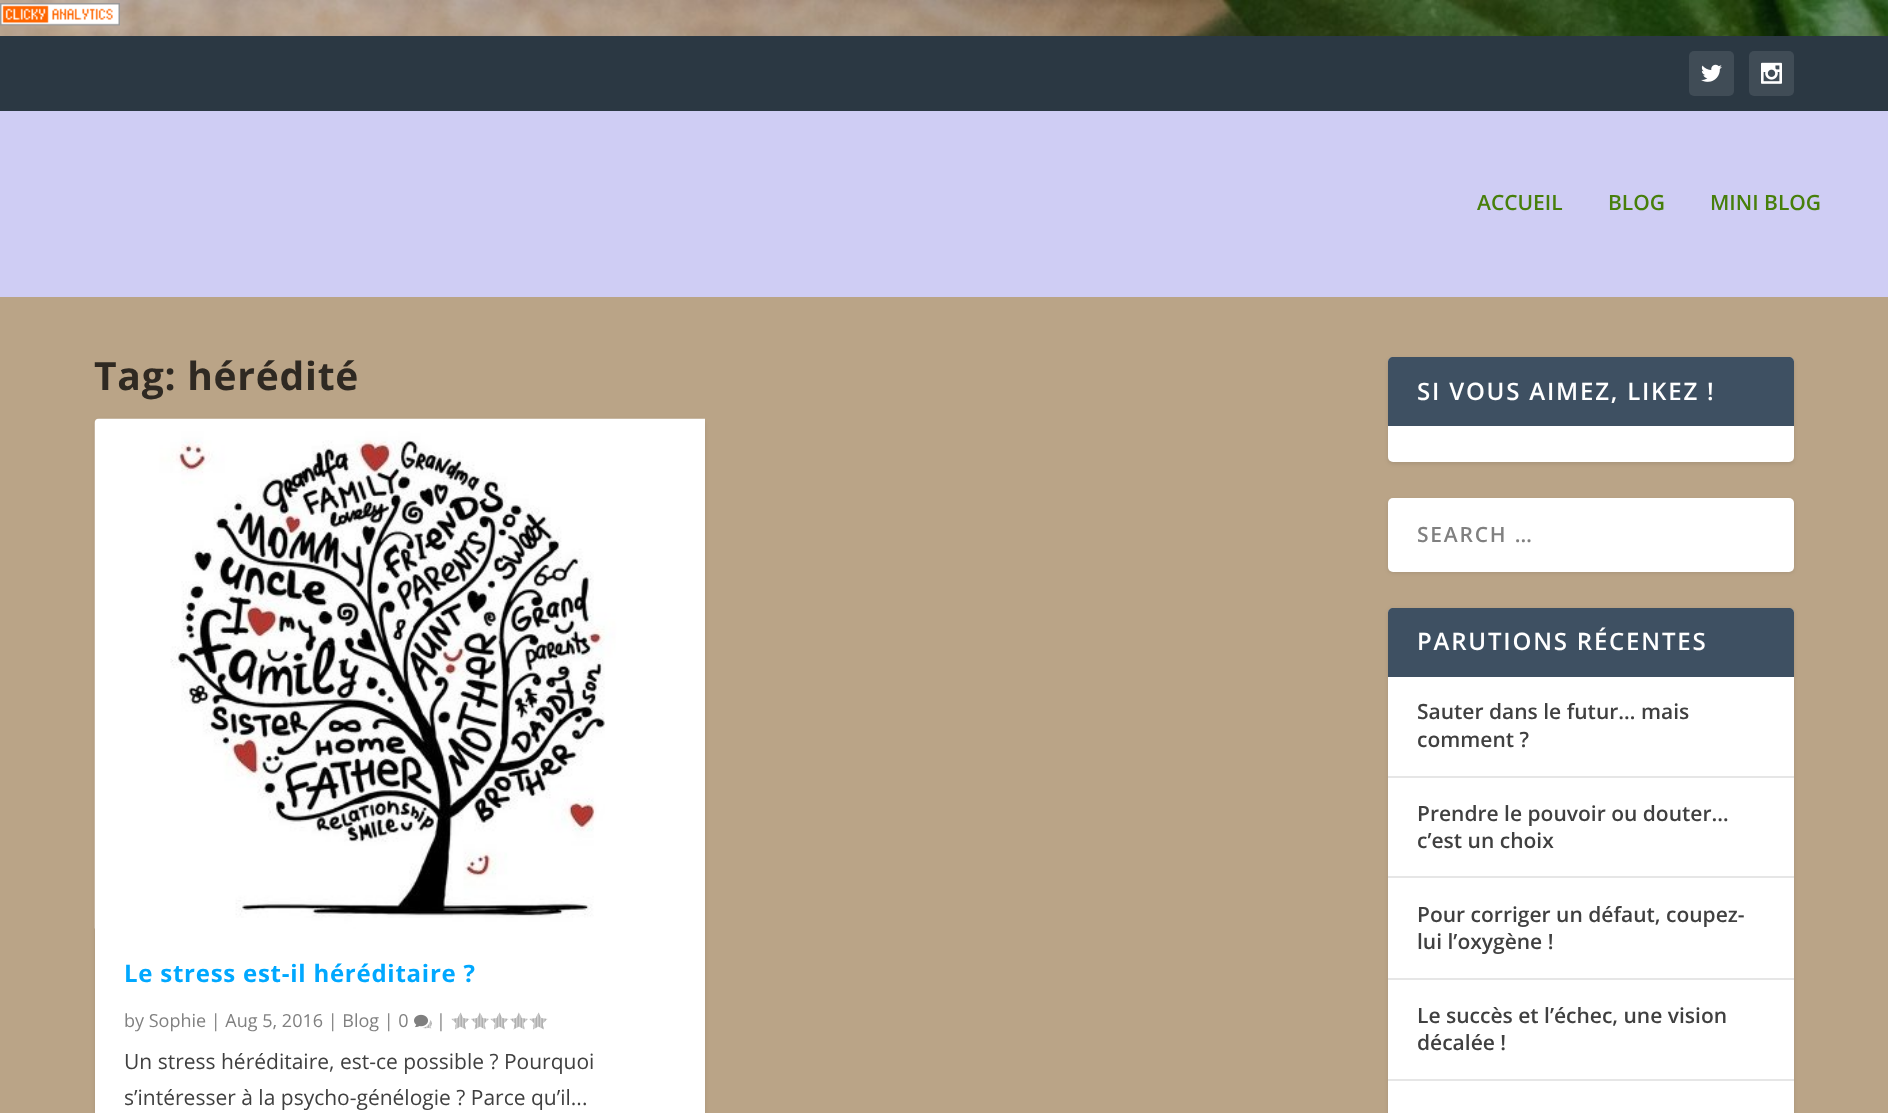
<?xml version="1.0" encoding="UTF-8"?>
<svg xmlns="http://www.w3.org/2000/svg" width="1888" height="1113">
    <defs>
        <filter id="blur1" x="-50%" y="-200%" width="200%" height="500%"><feGaussianBlur stdDeviation="2"/></filter>
    </defs>
    <rect width="100%" height="100%" fill="#FFFFFF"/>
    <image x="0" y="0" width="1888" height="36" href="img_01.png"/>
    <image x="0" y="3" width="120" height="23" href="img_02.png"/>
    <rect x="0" y="297" width="1888" height="816" fill="#BAA487"/>
    <rect x="0" y="36" width="1888" height="75" fill="#2B3843"/>
    <rect x="1689" y="51" width="45" height="45" rx="5" fill="#404C56"/>
    <image x="1701" y="64" width="21" height="18" href="img_03.png"/>
    <rect x="1749" y="51" width="45" height="45" rx="5" fill="#404C56"/>
    <image x="1761" y="62" width="21" height="22" href="img_04.png"/>
    <rect x="0" y="111" width="1888" height="186" fill="#CFCDF4"/>
    <text x="1477" y="210" font-family="Open Sans" font-size="21" font-weight="600" fill="#477F0B">ACCUEIL</text>
    <text x="1608" y="210" font-family="Open Sans" font-size="21" font-weight="600" fill="#477F0B">BLOG</text>
    <text x="1710" y="210" font-family="Open Sans" font-size="21" font-weight="600" fill="#477F0B">MINI BLOG</text>
    <text x="94" y="390" font-family="Open Sans" font-size="39" font-weight="700" letter-spacing="0.75" fill="#2F2922">Tag: hérédité</text>
    <rect x="95" y="420" width="610" height="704" rx="5" fill="#000000" fill-opacity="0.1" filter="url(#blur1)"/>
    <path d="M 100 419 H 700 C 703 419 705 421 705 424 V 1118 H 100 C 97 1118 95 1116 95 1113 V 424 C 95 421 97 419 100 419 Z" fill="#FFFFFF"/>
    <image x="94" y="418" width="611" height="511" href="img_05.png"/>
    <text x="124" y="982" font-family="Open Sans" font-size="24" font-weight="700" letter-spacing="0.75" fill="#00A8FF">Le stress est-il héréditaire ?</text>
    <text x="124" y="1027" font-family="Open Sans" font-size="18" fill="#808080">by Sophie | Aug 5, 2016 | Blog | 0</text>
    <image x="414" y="1014" width="18" height="15" href="img_06.png"/>
    <text x="436" y="1027" font-family="Open Sans" font-size="18" fill="#808080">|</text>
    <image x="451" y="1012" width="19" height="18" href="img_07.png"/>
    <image x="471" y="1012" width="18" height="18" href="img_08.png"/>
    <image x="490" y="1012" width="19" height="18" href="img_07.png"/>
    <image x="510" y="1012" width="18" height="18" href="img_08.png"/>
    <image x="529" y="1012" width="19" height="18" href="img_07.png"/>
    <text font-family="Open Sans" font-size="21" fill="#404040">
        <tspan x="124" y="1069">Un stress héréditaire, est-ce possible ? Pourquoi</tspan>
        <tspan x="124" y="1105">s’intéresser à la psycho-génélogie ? Parce qu’il...</tspan>
    </text>
    <rect x="1388" y="359" width="406" height="105" rx="5" fill="#000000" fill-opacity="0.1" filter="url(#blur1)"/>
    <rect x="1388" y="357" width="406" height="105" rx="5" fill="#FFFFFF"/>
    <path d="M 1393 357 H 1789 C 1792 357 1794 359 1794 362 V 426 H 1388 V 362 C 1388 359 1390 357 1393 357 Z" fill="#3E5062"/>
    <text x="1417" y="400" font-family="Open Sans" font-size="24" font-weight="600" letter-spacing="1.8" fill="#FFFFFF">SI VOUS AIMEZ, LIKEZ !</text>
    <rect x="1388" y="500" width="406" height="73" rx="5" fill="#000000" fill-opacity="0.1" filter="url(#blur1)"/>
    <rect x="1388" y="498" width="406" height="74" rx="5" fill="#FFFFFF"/>
    <text x="1417" y="542" font-family="Open Sans" font-size="21" font-weight="600" letter-spacing="1.8" fill="#808080">SEARCH …</text>
    <rect x="1388" y="609" width="406" height="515" rx="5" fill="#000000" fill-opacity="0.1" filter="url(#blur1)"/>
    <rect x="1388" y="608" width="406" height="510" rx="5" fill="#FFFFFF"/>
    <path d="M 1393 608 H 1789 C 1792 608 1794 610 1794 613 V 677 H 1388 V 613 C 1388 610 1390 608 1393 608 Z" fill="#3E5062"/>
    <text x="1417" y="650" font-family="Open Sans" font-size="24" font-weight="600" letter-spacing="1.8" fill="#FFFFFF">PARUTIONS RÉCENTES</text>
    <rect x="1388" y="776" width="406" height="2" fill="#E6E6E6"/>
    <text font-family="Open Sans" font-size="21" font-weight="600" fill="#404040">
        <tspan x="1417" y="719">Sauter dans le futur… mais</tspan>
        <tspan x="1417" y="747">comment ?</tspan>
    </text>
    <rect x="1388" y="876" width="406" height="2" fill="#E6E6E6"/>
    <text font-family="Open Sans" font-size="21" font-weight="600" fill="#404040">
        <tspan x="1417" y="821">Prendre le pouvoir ou douter…</tspan>
        <tspan x="1417" y="848">c’est un choix</tspan>
    </text>
    <rect x="1388" y="978" width="406" height="2" fill="#E6E6E6"/>
    <text font-family="Open Sans" font-size="21" font-weight="600" fill="#404040">
        <tspan x="1417" y="922">Pour corriger un défaut, coupez-</tspan>
        <tspan x="1417" y="949">lui l’oxygène !</tspan>
    </text>
    <rect x="1388" y="1079" width="406" height="2" fill="#E6E6E6"/>
    <text font-family="Open Sans" font-size="21" font-weight="600" fill="#404040">
        <tspan x="1417" y="1023">Le succès et l’échec, une vision</tspan>
        <tspan x="1417" y="1050">décalée !</tspan>
    </text>
</svg>
